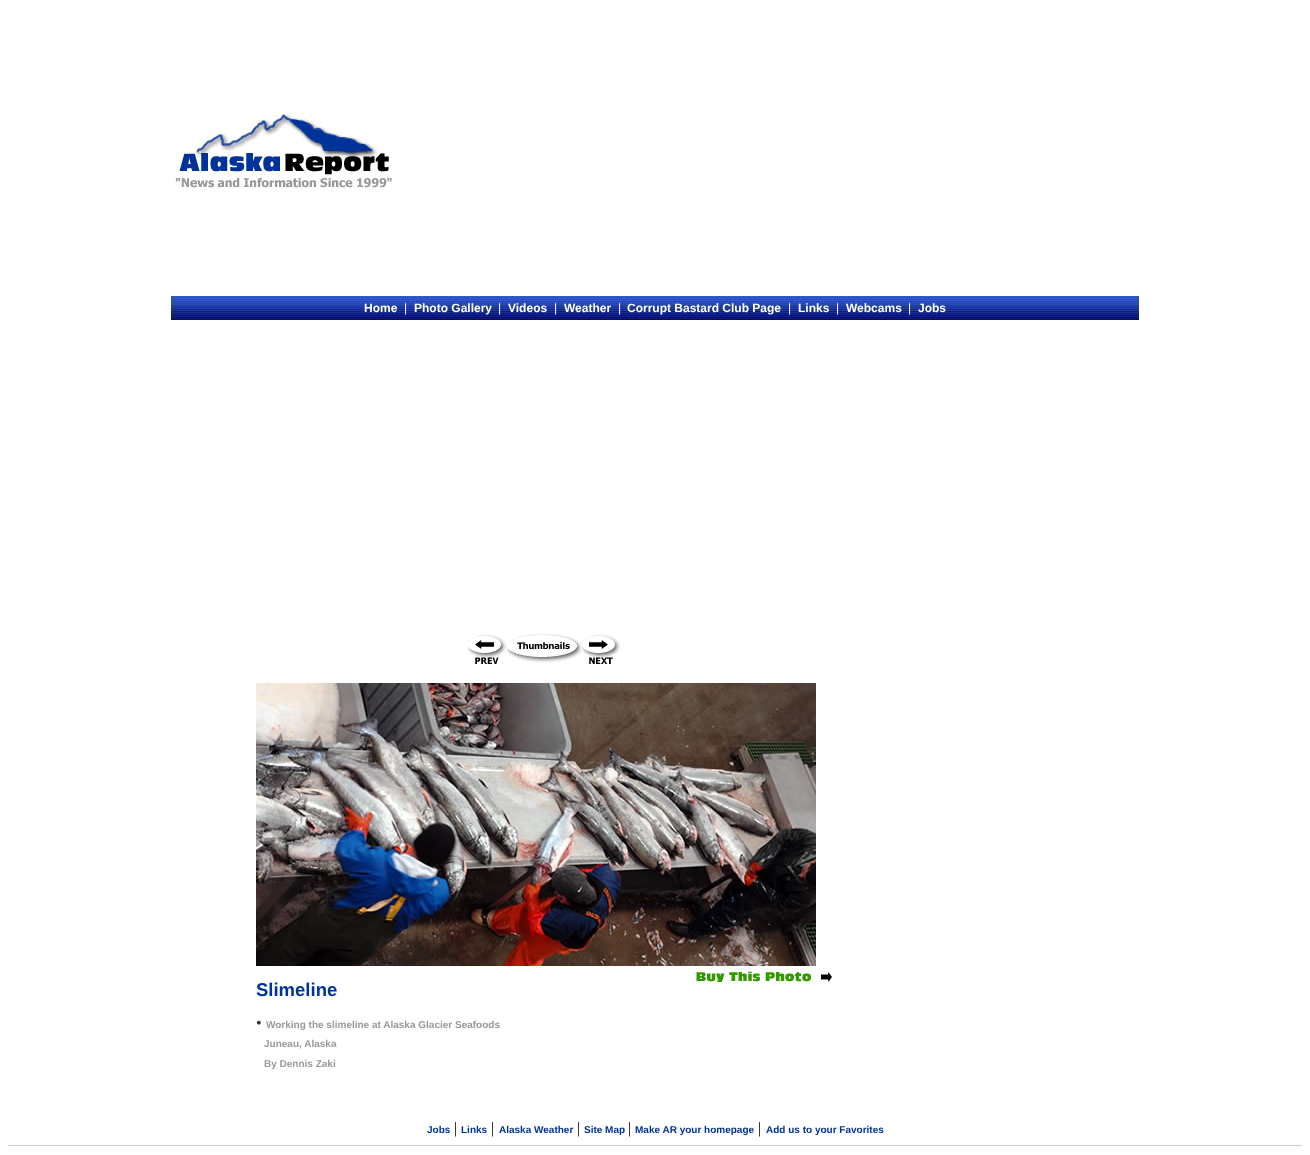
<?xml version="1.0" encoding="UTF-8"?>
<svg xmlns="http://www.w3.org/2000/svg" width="1310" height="1155">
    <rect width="100%" height="100%" fill="#FFFFFF"/>
    <image x="175" y="114" width="217" height="74" href="img_01.png"/>
    <image x="171" y="296" width="968" height="24" href="img_02.png"/>
    <text x="364" y="312" font-family="Liberation Sans" font-size="12" font-weight="700" fill="#FFFFFF">Home</text>
    <text x="404" y="312" font-family="Liberation Sans" font-size="12" fill="#FFFFFF">|</text>
    <text x="414" y="312" font-family="Liberation Sans" font-size="12" font-weight="700" fill="#FFFFFF">Photo Gallery</text>
    <text x="498" y="312" font-family="Liberation Sans" font-size="12" fill="#FFFFFF">|</text>
    <text x="508" y="312" font-family="Liberation Sans" font-size="12" font-weight="700" fill="#FFFFFF">Videos</text>
    <text x="554" y="312" font-family="Liberation Sans" font-size="12" fill="#FFFFFF">|</text>
    <text x="564" y="312" font-family="Liberation Sans" font-size="12" font-weight="700" fill="#FFFFFF">Weather</text>
    <text x="618" y="312" font-family="Liberation Sans" font-size="12" fill="#FFFFFF">|</text>
    <text x="627" y="312" font-family="Liberation Sans" font-size="12" font-weight="700" fill="#FFFFFF">Corrupt Bastard Club Page</text>
    <text x="788" y="312" font-family="Liberation Sans" font-size="12" fill="#FFFFFF">|</text>
    <text x="798" y="312" font-family="Liberation Sans" font-size="12" font-weight="700" fill="#FFFFFF">Links</text>
    <text x="836" y="312" font-family="Liberation Sans" font-size="12" fill="#FFFFFF">|</text>
    <text x="846" y="312" font-family="Liberation Sans" font-size="12" font-weight="700" fill="#FFFFFF">Webcams</text>
    <text x="908" y="312" font-family="Liberation Sans" font-size="12" fill="#FFFFFF">|</text>
    <text x="918" y="312" font-family="Liberation Sans" font-size="12" font-weight="700" fill="#FFFFFF">Jobs</text>
    <image x="468" y="634" width="38" height="30" href="img_03.png"/>
    <image x="506" y="634" width="76" height="29" href="img_04.png"/>
    <image x="582" y="634" width="38" height="30" href="img_05.png"/>
    <image x="256" y="683" width="560" height="283" href="img_06.png"/>
    <image x="696" y="971" width="136" height="11" href="img_07.png"/>
    <text x="256" y="996" font-family="Liberation Sans" font-size="18.5" font-weight="700" fill="#003399">Slimeline</text>
    <text x="256" y="1028" font-family="Liberation Serif" font-size="16" fill="#333333">•</text>
    <text x="266" y="1028" font-family="Liberation Sans" font-size="10" font-weight="700" fill="#999999">Working the slimeline at Alaska Glacier Seafoods</text>
    <text x="264" y="1047" font-family="Liberation Sans" font-size="10" font-weight="700" fill="#999999">Juneau, Alaska</text>
    <text x="264" y="1067" font-family="Liberation Sans" font-size="10" font-weight="700" fill="#999999">By Dennis Zaki</text>
    <text x="427" y="1133" font-family="Liberation Sans" font-size="10" font-weight="700" fill="#003399">Jobs</text>
    <text x="454" y="1133" font-family="Liberation Serif" font-size="16" fill="#000000">|</text>
    <text x="461" y="1133" font-family="Liberation Sans" font-size="10" font-weight="700" fill="#003399">Links</text>
    <text x="491" y="1133" font-family="Liberation Serif" font-size="16" fill="#000000">|</text>
    <text x="499" y="1133" font-family="Liberation Sans" font-size="10" font-weight="700" fill="#003399">Alaska Weather</text>
    <text x="577" y="1133" font-family="Liberation Serif" font-size="16" fill="#000000">|</text>
    <text x="584" y="1133" font-family="Liberation Sans" font-size="10" font-weight="700" fill="#003399">Site Map</text>
    <text x="628" y="1133" font-family="Liberation Serif" font-size="16" fill="#000000">|</text>
    <text x="635" y="1133" font-family="Liberation Sans" font-size="10" font-weight="700" fill="#003399">Make AR your homepage</text>
    <text x="758" y="1133" font-family="Liberation Serif" font-size="16" fill="#000000">|</text>
    <text x="766" y="1133" font-family="Liberation Sans" font-size="10" font-weight="700" fill="#003399">Add us to your Favorites</text>
    <rect x="8" y="1145" width="1294" height="1" fill="#CCCCCC"/>
</svg>
